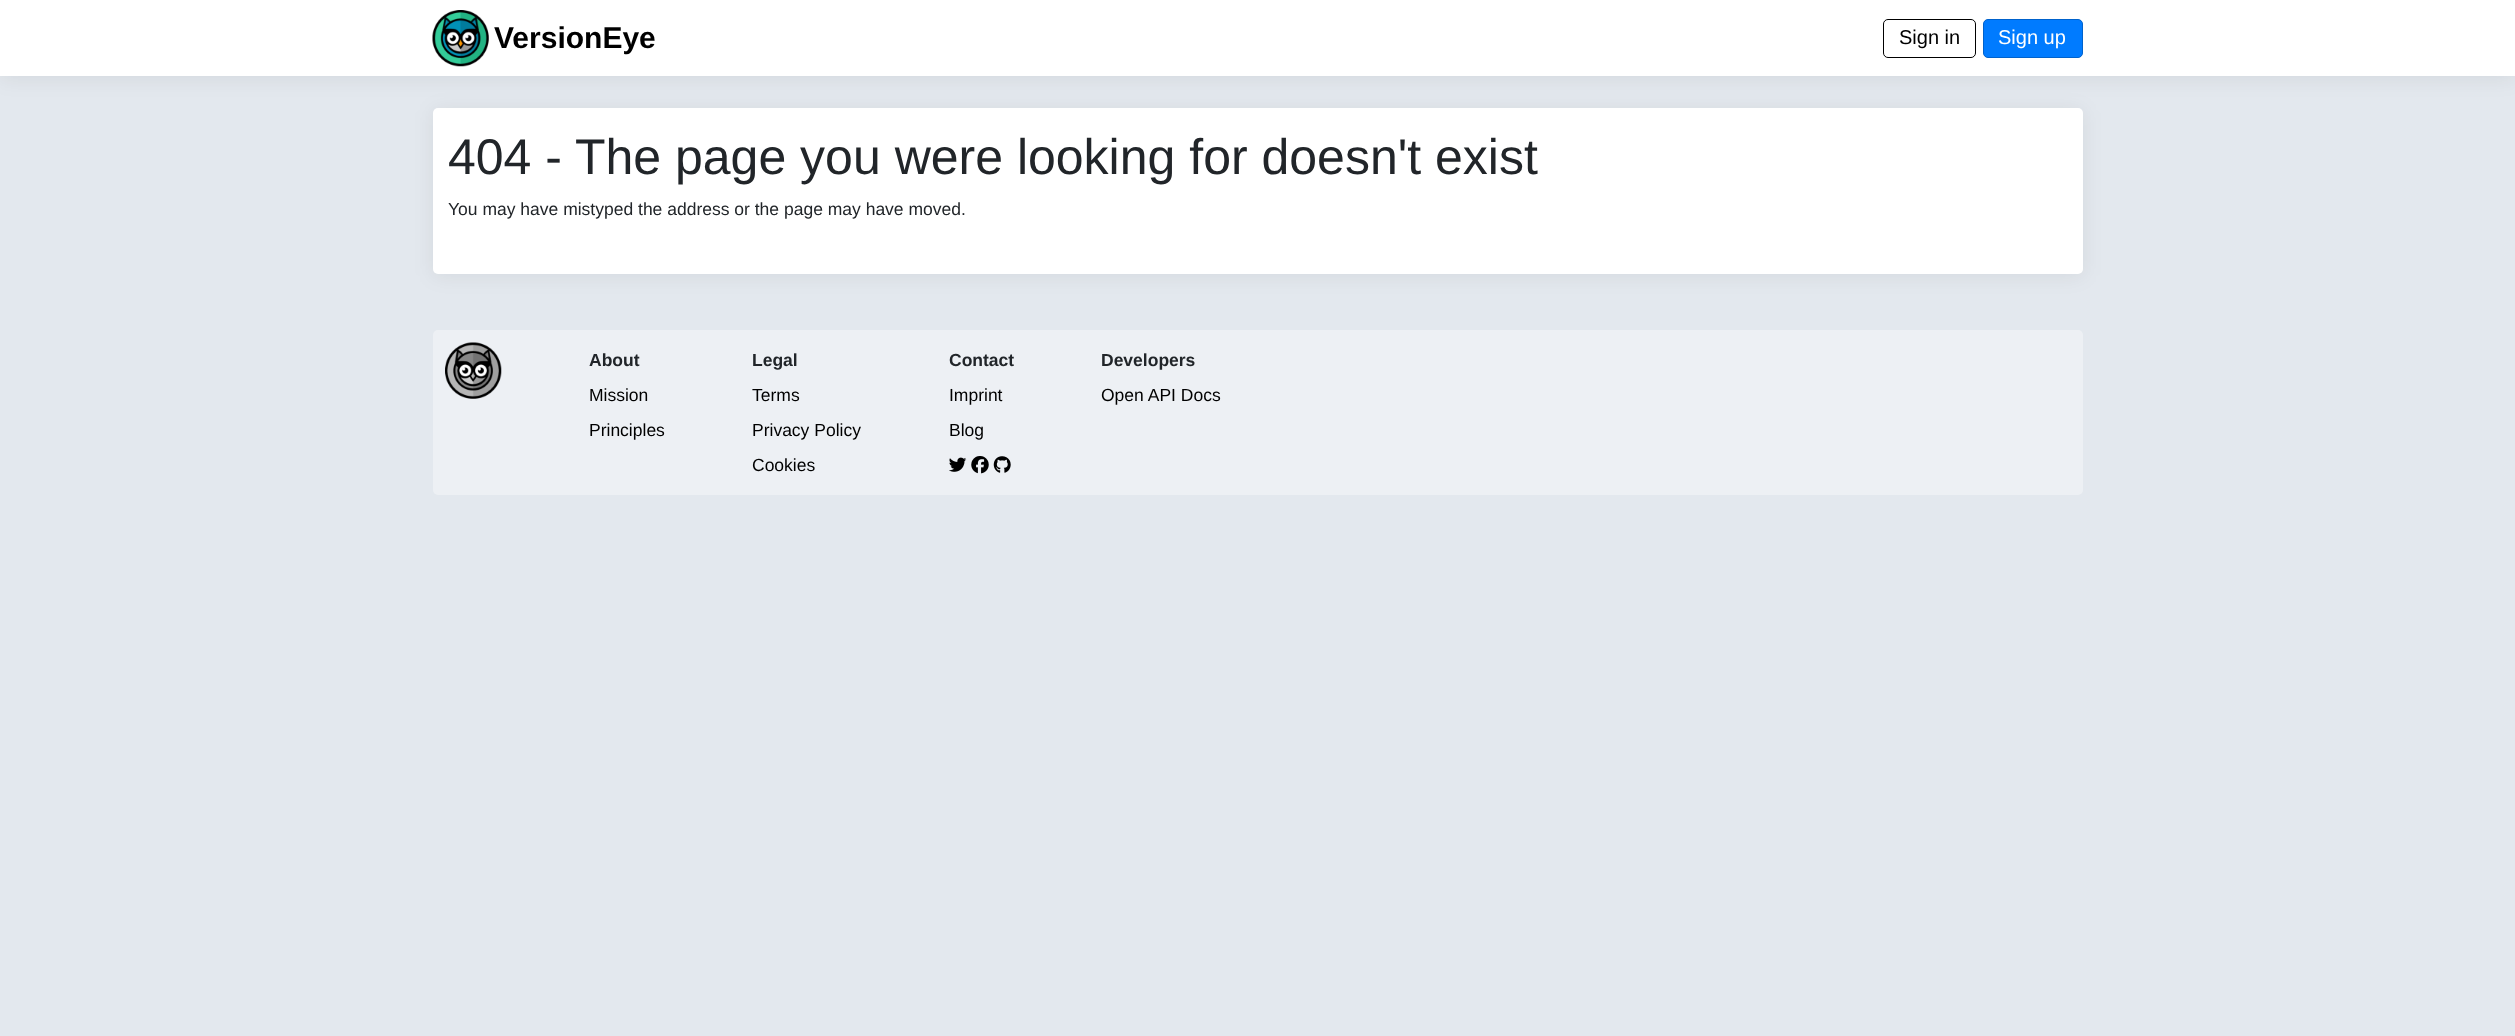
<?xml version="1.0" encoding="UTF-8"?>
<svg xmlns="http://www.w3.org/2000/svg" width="2515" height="1036">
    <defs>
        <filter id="blur1" x="-50%" y="-200%" width="200%" height="500%"><feGaussianBlur stdDeviation="10"/></filter>
    </defs>
    <rect width="100%" height="100%" fill="#E3E8EE"/>
    <rect x="0" y="3" width="2515" height="76" fill="#000000" fill-opacity="0.07" filter="url(#blur1)"/>
    <rect x="0" y="0" width="2515" height="76" fill="#FFFFFF"/>
    <image x="432" y="10" width="57" height="57" href="img_01.png"/>
    <text x="494" y="48" font-family="Liberation Sans" font-size="30" font-weight="700" fill="#000000">VersionEye</text>
    <rect x="1883.5" y="19.5" width="92" height="38" rx="4.5" fill="none" stroke="#000000"/>
    <text x="1899" y="44" font-family="Liberation Sans" font-size="20" fill="#000000">Sign in</text>
    <rect x="1983.5" y="19.5" width="99" height="38" rx="4.5" fill="#007BFF" stroke="#0062CC"/>
    <text x="1998" y="44" font-family="Liberation Sans" font-size="20" fill="#FFFFFF">Sign up</text>
    <rect x="433" y="110" width="1650" height="166" rx="5" fill="#000000" fill-opacity="0.07" filter="url(#blur1)"/>
    <rect x="433" y="108" width="1650" height="166" rx="5" fill="#FFFFFF"/>
    <text x="448" y="174" font-family="Liberation Sans" font-size="50" fill="#212529">404 - The page you were looking for doesn't exist</text>
    <text x="448" y="215" font-family="Liberation Sans" font-size="17.5" fill="#212529">You may have mistyped the address or the page may have moved.</text>
    <rect x="433" y="330" width="1650" height="165" rx="5" fill="#EDF0F4"/>
    <image x="445" y="342" width="57" height="57" href="img_02.png"/>
    <text x="589" y="366" font-family="Liberation Sans" font-size="17.5" font-weight="700" fill="#212529">About</text>
    <text x="589" y="401" font-family="Liberation Sans" font-size="17.5" fill="#000000">Mission</text>
    <text x="589" y="436" font-family="Liberation Sans" font-size="17.5" fill="#000000">Principles</text>
    <text x="752" y="366" font-family="Liberation Sans" font-size="17.5" font-weight="700" fill="#212529">Legal</text>
    <text x="752" y="401" font-family="Liberation Sans" font-size="17.5" fill="#000000">Terms</text>
    <text x="752" y="436" font-family="Liberation Sans" font-size="17.5" fill="#000000">Privacy Policy</text>
    <text x="752" y="471" font-family="Liberation Sans" font-size="17.5" fill="#000000">Cookies</text>
    <text x="949" y="366" font-family="Liberation Sans" font-size="17.5" font-weight="700" fill="#212529">Contact</text>
    <text x="949" y="401" font-family="Liberation Sans" font-size="17.5" fill="#000000">Imprint</text>
    <text x="949" y="436" font-family="Liberation Sans" font-size="17.5" fill="#000000">Blog</text>
    <image x="949" y="457" width="18" height="15" href="img_03.png"/>
    <image x="971" y="456" width="18" height="18" href="img_04.png"/>
    <image x="993" y="456" width="18" height="17" href="img_05.png"/>
    <text x="1101" y="366" font-family="Liberation Sans" font-size="17.5" font-weight="700" fill="#212529">Developers</text>
    <text x="1101" y="401" font-family="Liberation Sans" font-size="17.5" fill="#000000">Open API Docs</text>
</svg>
